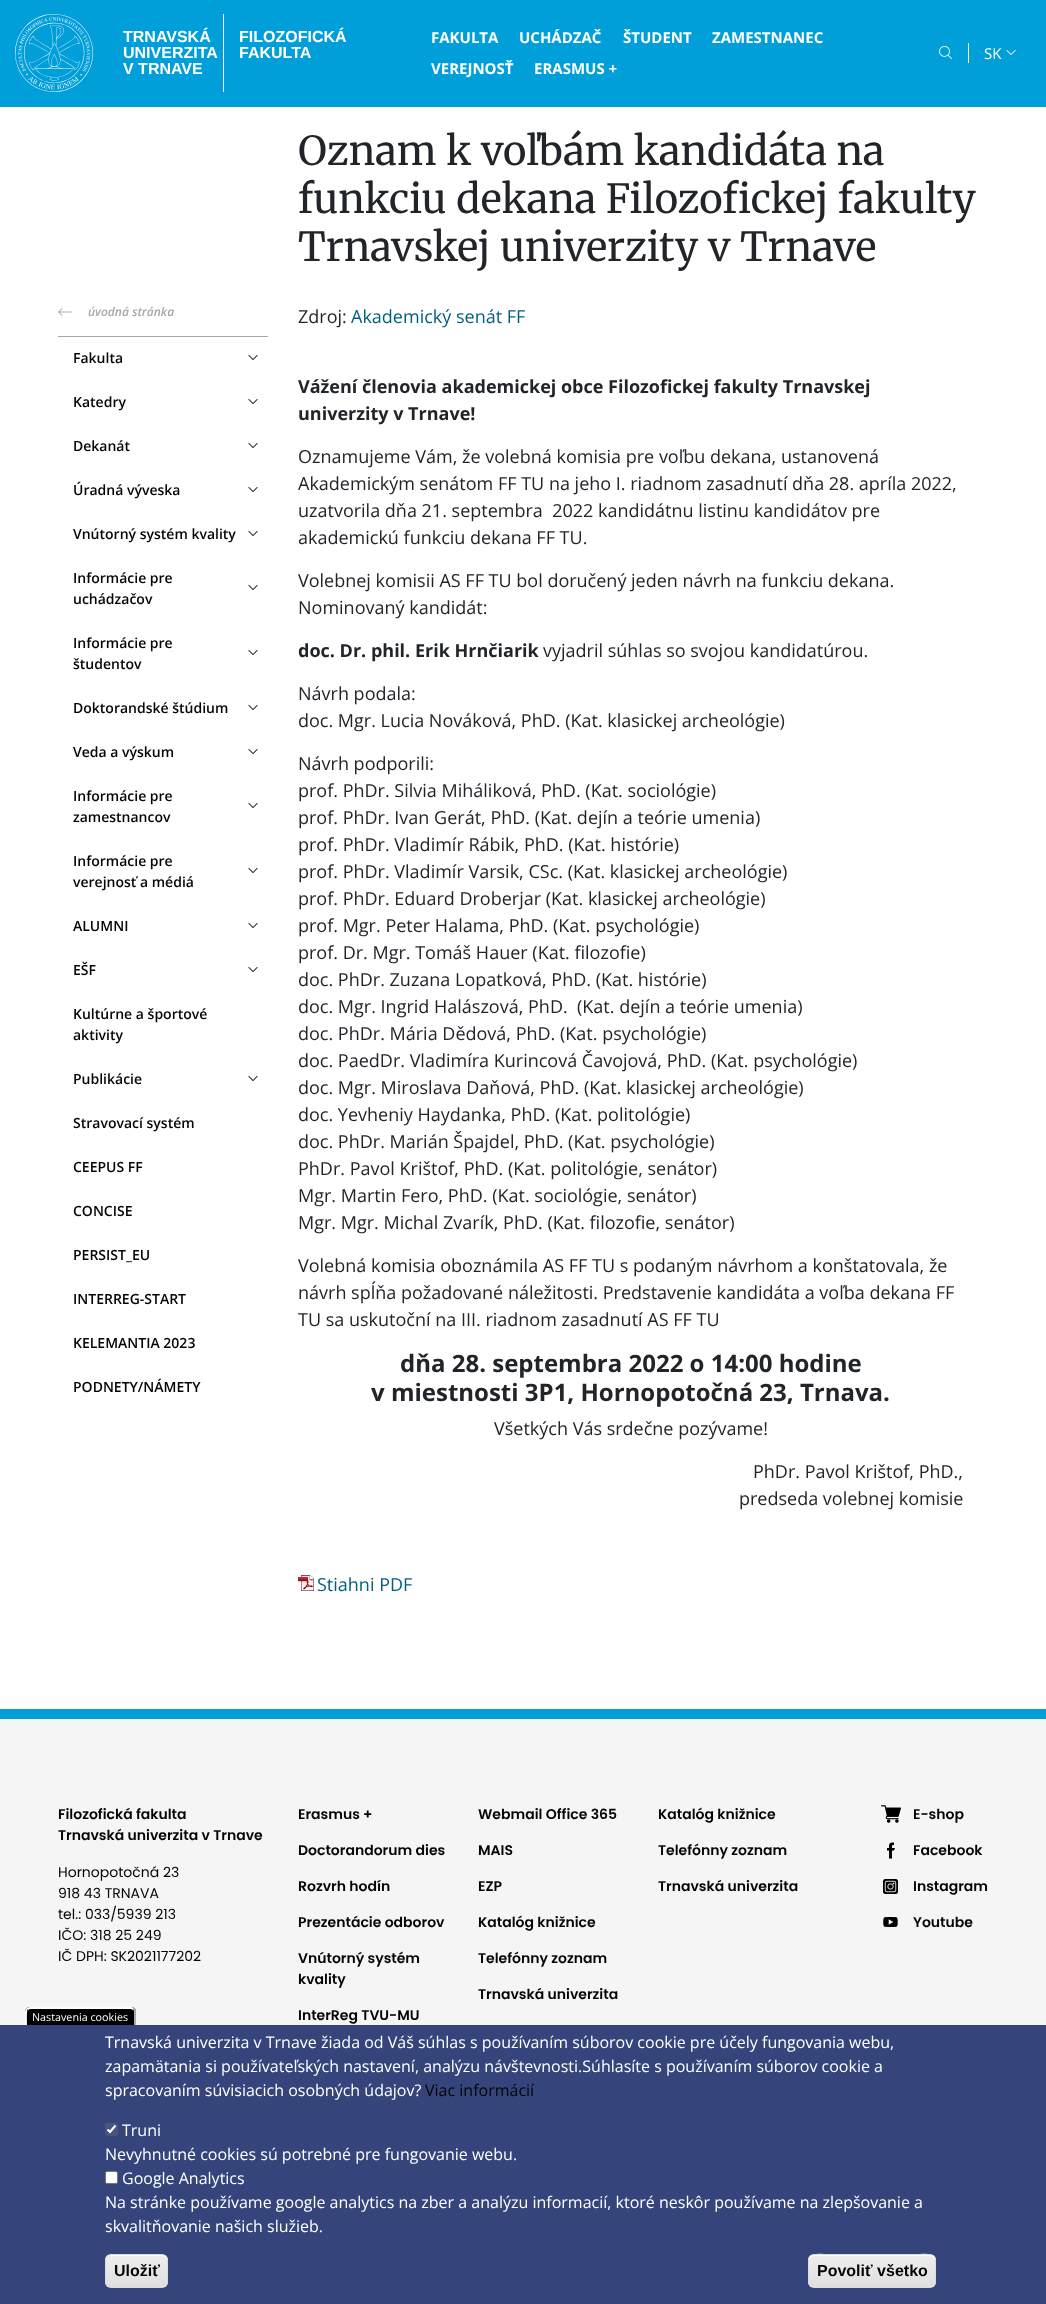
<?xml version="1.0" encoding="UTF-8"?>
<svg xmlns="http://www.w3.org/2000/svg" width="1046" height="2304">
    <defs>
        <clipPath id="clip1"><rect x="105" y="2254" width="63" height="34" rx="6"/></clipPath>
        <linearGradient id="g1" gradientUnits="userSpaceOnUse" x1="137" y1="2255" x2="137" y2="2287"><stop offset="0.05" stop-color="#EDEDED"/><stop offset="1" stop-color="#DFDFDF"/></linearGradient>
        <clipPath id="clip2"><rect x="808" y="2254" width="128" height="34" rx="6"/></clipPath>
        <linearGradient id="g2" gradientUnits="userSpaceOnUse" x1="872" y1="2255" x2="872" y2="2287"><stop offset="0.05" stop-color="#EDEDED"/><stop offset="1" stop-color="#DFDFDF"/></linearGradient>
    </defs>
    <rect width="100%" height="100%" fill="#FFFFFF"/>
    <rect x="0" y="0" width="1046" height="107" fill="#009FDA"/>
    <image x="15" y="14" width="78" height="78" href="img_01.png"/>
    <text font-family="Liberation Sans" font-size="16" font-weight="700" fill="#FFFFFF">
        <tspan x="123" y="42">TRNAVSKÁ</tspan>
        <tspan x="123" y="58">UNIVERZITA</tspan>
        <tspan x="123" y="74">V TRNAVE</tspan>
    </text>
    <rect x="223" y="14" width="1" height="78" fill="#F5F5F5"/>
    <text font-family="Liberation Sans" font-size="16" font-weight="700" fill="#FFFFFF">
        <tspan x="239" y="42">FILOZOFICKÁ</tspan>
        <tspan x="239" y="58">FAKULTA</tspan>
    </text>
    <text x="431" y="43" font-family="Open Sans" font-size="15" font-weight="700" fill="#FFFFFF">FAKULTA</text>
    <text x="519" y="43" font-family="Open Sans" font-size="15" font-weight="700" fill="#FFFFFF">UCHÁDZAČ</text>
    <text x="623" y="43" font-family="Open Sans" font-size="15" font-weight="700" fill="#FFFFFF">ŠTUDENT</text>
    <text x="712" y="43" font-family="Open Sans" font-size="15" font-weight="700" fill="#FFFFFF">ZAMESTNANEC</text>
    <text x="431" y="74" font-family="Open Sans" font-size="15" font-weight="700" fill="#FFFFFF">VEREJNOSŤ</text>
    <text x="534" y="74" font-family="Open Sans" font-size="15" font-weight="700" fill="#FFFFFF">ERASMUS +</text>
    <image x="939" y="46" width="13" height="13" href="img_02.png"/>
    <rect x="968" y="43" width="1" height="20" fill="#FFFFFF"/>
    <text x="984" y="59" font-family="Open Sans" font-size="15" fill="#FFFFFF">SK</text>
    <image x="1006" y="50" width="10" height="5" href="img_03.png"/>
    <text font-family="Merriweather" font-size="40" fill="#212529">
        <tspan x="298" y="165">Oznam k voľbám kandidáta na</tspan>
        <tspan x="298" y="213">funkciu dekana Filozofickej fakulty</tspan>
        <tspan x="298" y="261">Trnavskej univerzity v Trnave</tspan>
    </text>
    <rect x="58" y="336" width="210" height="1" fill="#A7A7A7"/>
    <image x="58" y="308" width="14" height="8" href="img_04.png"/>
    <text x="88" y="316" font-family="Open Sans" font-size="12" font-weight="600" font-style="italic" fill="#A7A7A7">úvodná stránka</text>
    <text x="73" y="363" font-family="Open Sans" font-size="14" font-weight="600" fill="#040404">Fakulta</text>
    <image x="248" y="355" width="10" height="5" href="img_05.png"/>
    <text x="73" y="407" font-family="Open Sans" font-size="14" font-weight="600" fill="#040404">Katedry</text>
    <image x="248" y="399" width="10" height="5" href="img_05.png"/>
    <text x="73" y="451" font-family="Open Sans" font-size="14" font-weight="600" fill="#040404">Dekanát</text>
    <image x="248" y="443" width="10" height="5" href="img_05.png"/>
    <text x="73" y="495" font-family="Open Sans" font-size="14" font-weight="600" fill="#040404">Úradná výveska</text>
    <image x="248" y="487" width="10" height="5" href="img_05.png"/>
    <text x="73" y="539" font-family="Open Sans" font-size="14" font-weight="600" fill="#040404">Vnútorný systém kvality</text>
    <image x="248" y="531" width="10" height="5" href="img_05.png"/>
    <text x="73" y="583" font-family="Open Sans" font-size="14" font-weight="600" fill="#040404">Informácie pre</text>
    <image x="248" y="585" width="10" height="5" href="img_05.png"/>
    <text x="73" y="604" font-family="Open Sans" font-size="14" font-weight="600" fill="#040404">uchádzačov</text>
    <text x="73" y="648" font-family="Open Sans" font-size="14" font-weight="600" fill="#040404">Informácie pre</text>
    <image x="248" y="650" width="10" height="5" href="img_05.png"/>
    <text x="73" y="669" font-family="Open Sans" font-size="14" font-weight="600" fill="#040404">študentov</text>
    <text x="73" y="713" font-family="Open Sans" font-size="14" font-weight="600" fill="#040404">Doktorandské štúdium</text>
    <image x="248" y="705" width="10" height="5" href="img_05.png"/>
    <text x="73" y="757" font-family="Open Sans" font-size="14" font-weight="600" fill="#040404">Veda a výskum</text>
    <image x="248" y="749" width="10" height="5" href="img_05.png"/>
    <text x="73" y="801" font-family="Open Sans" font-size="14" font-weight="600" fill="#040404">Informácie pre</text>
    <image x="248" y="803" width="10" height="5" href="img_05.png"/>
    <text x="73" y="822" font-family="Open Sans" font-size="14" font-weight="600" fill="#040404">zamestnancov</text>
    <text x="73" y="866" font-family="Open Sans" font-size="14" font-weight="600" fill="#040404">Informácie pre</text>
    <image x="248" y="868" width="10" height="5" href="img_05.png"/>
    <text x="73" y="887" font-family="Open Sans" font-size="14" font-weight="600" fill="#040404">verejnosť a médiá</text>
    <text x="73" y="931" font-family="Open Sans" font-size="14" font-weight="600" fill="#040404">ALUMNI</text>
    <image x="248" y="923" width="10" height="5" href="img_05.png"/>
    <text x="73" y="975" font-family="Open Sans" font-size="14" font-weight="600" fill="#040404">EŠF</text>
    <image x="248" y="967" width="10" height="5" href="img_05.png"/>
    <text font-family="Open Sans" font-size="14" font-weight="600" fill="#040404">
        <tspan x="73" y="1019">Kultúrne a športové</tspan>
        <tspan x="73" y="1040">aktivity</tspan>
    </text>
    <text x="73" y="1084" font-family="Open Sans" font-size="14" font-weight="600" fill="#040404">Publikácie</text>
    <image x="248" y="1076" width="10" height="5" href="img_05.png"/>
    <text x="73" y="1128" font-family="Open Sans" font-size="14" font-weight="600" fill="#040404">Stravovací systém</text>
    <text x="73" y="1172" font-family="Open Sans" font-size="14" font-weight="600" fill="#040404">CEEPUS FF</text>
    <text x="73" y="1216" font-family="Open Sans" font-size="14" font-weight="600" fill="#040404">CONCISE</text>
    <text x="73" y="1260" font-family="Open Sans" font-size="14" font-weight="600" fill="#040404">PERSIST_EU</text>
    <text x="73" y="1304" font-family="Open Sans" font-size="14" font-weight="600" fill="#040404">INTERREG-START</text>
    <text x="73" y="1348" font-family="Open Sans" font-size="14" font-weight="600" fill="#040404">KELEMANTIA 2023</text>
    <text x="73" y="1392" font-family="Open Sans" font-size="14" font-weight="600" fill="#040404">PODNETY/NÁMETY</text>
    <text x="298" y="323" font-family="Open Sans" font-size="18" fill="#212529">Zdroj:</text>
    <text x="351" y="323" font-family="Open Sans" font-size="18" fill="#005E80">Akademický senát FF</text>
    <text font-family="Open Sans" font-size="18" font-weight="700" fill="#212529">
        <tspan x="298" y="393">Vážení členovia akademickej obce Filozofickej fakulty Trnavskej</tspan>
        <tspan x="298" y="420">univerzity v Trnave!</tspan>
    </text>
    <text font-family="Open Sans" font-size="18" fill="#212529" xml:space="preserve"><tspan x="298" y="463">Oznamujeme Vám, že volebná komisia pre voľbu dekana, ustanovená</tspan><tspan x="298" y="490">Akademickým senátom FF TU na jeho I. riadnom zasadnutí dňa 28. apríla 2022,</tspan><tspan x="298" y="517">uzatvorila dňa 21. septembra  2022 kandidátnu listinu kandidátov pre</tspan><tspan x="298" y="544">akademickú funkciu dekana FF TU.</tspan></text>
    <text font-family="Open Sans" font-size="18" fill="#212529">
        <tspan x="298" y="587">Volebnej komisii AS FF TU bol doručený jeden návrh na funkciu dekana.</tspan>
        <tspan x="298" y="614">Nominovaný kandidát:</tspan>
    </text>
    <text x="298" y="657" font-family="Open Sans" font-size="18" font-weight="700" fill="#212529">doc. Dr. phil. Erik Hrnčiarik</text>
    <text x="543" y="657" font-family="Open Sans" font-size="18" fill="#212529">vyjadril súhlas so svojou kandidatúrou.</text>
    <text font-family="Open Sans" font-size="18" fill="#212529">
        <tspan x="298" y="700">Návrh podala:</tspan>
        <tspan x="298" y="727">doc. Mgr. Lucia Nováková, PhD. (Kat. klasickej archeológie)</tspan>
    </text>
    <text font-family="Open Sans" font-size="18" fill="#212529" xml:space="preserve"><tspan x="298" y="770">Návrh podporili:</tspan><tspan x="298" y="797">prof. PhDr. Silvia Miháliková, PhD. (Kat. sociológie)</tspan><tspan x="298" y="824">prof. PhDr. Ivan Gerát, PhD. (Kat. dejín a teórie umenia)</tspan><tspan x="298" y="851">prof. PhDr. Vladimír Rábik, PhD. (Kat. histórie)</tspan><tspan x="298" y="878">prof. PhDr. Vladimír Varsik, CSc. (Kat. klasickej archeológie)</tspan><tspan x="298" y="905">prof. PhDr. Eduard Droberjar (Kat. klasickej archeológie)</tspan><tspan x="298" y="932">prof. Mgr. Peter Halama, PhD. (Kat. psychológie)</tspan><tspan x="298" y="959">prof. Dr. Mgr. Tomáš Hauer (Kat. filozofie)</tspan><tspan x="298" y="986">doc. PhDr. Zuzana Lopatková, PhD. (Kat. histórie)</tspan><tspan x="298" y="1013">doc. Mgr. Ingrid Halászová, PhD.  (Kat. dejín a teórie umenia)</tspan><tspan x="298" y="1040">doc. PhDr. Mária Dědová, PhD. (Kat. psychológie)</tspan><tspan x="298" y="1067">doc. PaedDr. Vladimíra Kurincová Čavojová, PhD. (Kat. psychológie)</tspan><tspan x="298" y="1094">doc. Mgr. Miroslava Daňová, PhD. (Kat. klasickej archeológie)</tspan><tspan x="298" y="1121">doc. Yevheniy Haydanka, PhD. (Kat. politológie)</tspan><tspan x="298" y="1148">doc. PhDr. Marián Špajdel, PhD. (Kat. psychológie)</tspan><tspan x="298" y="1175">PhDr. Pavol Krištof, PhD. (Kat. politológie, senátor)</tspan><tspan x="298" y="1202">Mgr. Martin Fero, PhD. (Kat. sociológie, senátor)</tspan><tspan x="298" y="1229">Mgr. Mgr. Michal Zvarík, PhD. (Kat. filozofie, senátor)</tspan></text>
    <text font-family="Open Sans" font-size="18" fill="#212529">
        <tspan x="298" y="1272">Volebná komisia oboznámila AS FF TU s podaným návrhom a konštatovala, že</tspan>
        <tspan x="298" y="1299">návrh spĺňa požadované náležitosti. Predstavenie kandidáta a voľba dekana FF</tspan>
        <tspan x="298" y="1326">TU sa uskutoční na III. riadnom zasadnutí AS FF TU</tspan>
    </text>
    <text x="400" y="1372" font-family="Open Sans" font-size="24" font-weight="700" fill="#212529">dňa 28. septembra 2022 o 14:00 hodine</text>
    <text x="371" y="1401" font-family="Open Sans" font-size="24" font-weight="700" fill="#212529">v miestnosti 3P1, Hornopotočná 23, Trnava.</text>
    <text x="494" y="1435" font-family="Open Sans" font-size="18" fill="#212529">Všetkých Vás srdečne pozývame!</text>
    <text x="753" y="1478" font-family="Open Sans" font-size="18" fill="#212529">PhDr. Pavol Krištof, PhD.,</text>
    <text x="739" y="1505" font-family="Open Sans" font-size="18" fill="#212529">predseda volebnej komisie</text>
    <image x="298" y="1575" width="16" height="16" href="img_06.png"/>
    <text x="317" y="1591" font-family="Open Sans" font-size="18" fill="#005E80">Stiahni PDF</text>
    <rect x="0" y="1719" width="1046" height="306" fill="#F5F5F5"/>
    <rect x="0" y="1709" width="1046" height="10" fill="#009FDA"/>
    <text font-family="Poppins" font-size="14" font-weight="600" fill="#040404">
        <tspan x="58" y="1819">Filozofická fakulta</tspan>
        <tspan x="58" y="1840">Trnavská univerzita v Trnave</tspan>
    </text>
    <text font-family="Poppins" font-size="14" fill="#040404">
        <tspan x="58" y="1877">Hornopotočná 23</tspan>
        <tspan x="58" y="1898">918 43 TRNAVA</tspan>
        <tspan x="58" y="1919">tel.: 033/5939 213</tspan>
        <tspan x="58" y="1940">IČO: 318 25 249</tspan>
        <tspan x="58" y="1961">IČ DPH: SK2021177202</tspan>
    </text>
    <text x="298" y="1819" font-family="Poppins" font-size="14" font-weight="600" fill="#040404">Erasmus +</text>
    <text x="298" y="1855" font-family="Poppins" font-size="14" font-weight="600" fill="#040404">Doctorandorum dies</text>
    <text x="298" y="1891" font-family="Poppins" font-size="14" font-weight="600" fill="#040404">Rozvrh hodín</text>
    <text x="298" y="1927" font-family="Poppins" font-size="14" font-weight="600" fill="#040404">Prezentácie odborov</text>
    <text font-family="Poppins" font-size="14" font-weight="600" fill="#040404">
        <tspan x="298" y="1963">Vnútorný systém</tspan>
        <tspan x="298" y="1984">kvality</tspan>
    </text>
    <text x="298" y="2020" font-family="Poppins" font-size="14" font-weight="600" fill="#040404">InterReg TVU-MU</text>
    <text x="478" y="1819" font-family="Poppins" font-size="14" font-weight="600" fill="#040404">Webmail Office 365</text>
    <text x="478" y="1855" font-family="Poppins" font-size="14" font-weight="600" fill="#040404">MAIS</text>
    <text x="478" y="1891" font-family="Poppins" font-size="14" font-weight="600" fill="#040404">EZP</text>
    <text x="478" y="1927" font-family="Poppins" font-size="14" font-weight="600" fill="#040404">Katalóg knižnice</text>
    <text x="478" y="1963" font-family="Poppins" font-size="14" font-weight="600" fill="#040404">Telefónny zoznam</text>
    <text x="478" y="1999" font-family="Poppins" font-size="14" font-weight="600" fill="#040404">Trnavská univerzita</text>
    <text x="658" y="1819" font-family="Poppins" font-size="14" font-weight="600" fill="#040404">Katalóg knižnice</text>
    <text x="658" y="1855" font-family="Poppins" font-size="14" font-weight="600" fill="#040404">Telefónny zoznam</text>
    <text x="658" y="1891" font-family="Poppins" font-size="14" font-weight="600" fill="#040404">Trnavská univerzita</text>
    <image x="881" y="1805" width="20" height="18" href="img_07.png"/>
    <text x="913" y="1819" font-family="Poppins" font-size="14" font-weight="600" fill="#040404">E-shop</text>
    <image x="887" y="1842" width="8" height="17" href="img_08.png"/>
    <text x="913" y="1855" font-family="Poppins" font-size="14" font-weight="600" fill="#040404">Facebook</text>
    <image x="883" y="1879" width="15" height="15" href="img_09.png"/>
    <text x="913" y="1891" font-family="Poppins" font-size="14" font-weight="600" fill="#040404">Instagram</text>
    <image x="883" y="1917" width="15" height="10" href="img_10.png"/>
    <text x="913" y="1927" font-family="Poppins" font-size="14" font-weight="600" fill="#040404">Youtube</text>
    <rect x="0" y="2025" width="1046" height="279" fill="#35457C"/>
    <path d="M 30 2007 H 131 C 134 2007 136 2009 136 2012 V 2025 H 25 V 2012 C 25 2009 27 2007 30 2007 Z" fill="#000000"/>
    <path d="M 30 2007 H 132 L 134 2008 L 133 2010 L 131 2009 H 30 L 28 2010 L 26 2008 C 27 2008 28 2007 30 2007 Z" fill="#FFFFFF"/>
    <path d="M 134.5 2008 C 135 2008.5 135.5 2009.5 136 2010.5 V 2025 H 134 V 2012 C 134 2011 133.5 2010 133 2009.5 Z" fill="#AAAAAA"/>
    <path d="M 27 2025 H 25 V 2012 C 25 2010.5 25.5 2009.5 26.5 2008.5 L 27.5 2010 C 26.5 2011.5 27 2022.5 27 2025 Z" fill="#FFFFFF"/>
    <text x="32" y="2021" font-family="Open Sans" font-size="10.75" fill="#FFFFFF">Nastavenia cookies</text>
    <text font-family="Open Sans" font-size="16" fill="#FFFFFF">
        <tspan x="105" y="2048">Trnavská univerzita v Trnave žiada od Váš súhlas s používaním súborov cookie pre účely fungovania webu,</tspan>
        <tspan x="105" y="2072">zapamätania si používateľských nastavení, analýzu návštevnosti.Súhlasíte s používaním súborov cookie a</tspan>
        <tspan x="105" y="2096">spracovaním súvisiacich osobných údajov?</tspan>
    </text>
    <text x="425" y="2096" font-family="Open Sans" font-size="16" fill="#040404">Viac informácií</text>
    <rect x="105" y="2123" width="13" height="13" rx="2" fill="#49547A"/>
    <path d="M 107.5 2129.5 L 110 2132 L 115.5 2125.5" fill="none" stroke="#FFFFFF" stroke-width="2.1"/>
    <text x="122" y="2136" font-family="Open Sans" font-size="16" fill="#FFFFFF">Truni</text>
    <text x="105" y="2160" font-family="Open Sans" font-size="16" fill="#FFFFFF">Nevyhnutné cookies sú potrebné pre fungovanie webu.</text>
    <rect x="105.5" y="2171.5" width="12" height="12" rx="1.5" fill="#FFFFFF" stroke="#767676"/>
    <text x="122" y="2184" font-family="Open Sans" font-size="16" fill="#FFFFFF">Google Analytics</text>
    <text font-family="Open Sans" font-size="16" fill="#FFFFFF">
        <tspan x="105" y="2208">Na stránke používame google analytics na zber a analýzu informacií, ktoré neskôr používame na zlepšovanie a</tspan>
        <tspan x="105" y="2232">skvalitňovanie našich služieb.</tspan>
    </text>
    <g clip-path="url(#clip1)">
        <rect x="105" y="2255" width="63" height="32" fill="url(#g1)"/>
    </g>
    <path d="M 111 2256 H 162 C 165 2256 167 2258 167 2261 C 167 2253 159 2255 154 2255 H 120 C 114 2255 106 2253 106 2261 C 106 2258 108 2256 111 2256 Z" fill="#FFFFFF"/>
    <rect x="105.5" y="2254.5" width="62" height="33" rx="5.5" fill="none" stroke="#DCDCDC"/>
    <text x="114" y="2276" font-family="Liberation Sans" font-size="16" font-weight="700" fill="#040404">Uložiť</text>
    <g clip-path="url(#clip2)">
        <rect x="808" y="2255" width="128" height="32" fill="url(#g2)"/>
    </g>
    <path d="M 814 2256 H 930 C 933 2256 935 2258 935 2261 C 935 2250 915 2255 911 2255 H 833 C 829 2255 809 2250 809 2261 C 809 2258 811 2256 814 2256 Z" fill="#FFFFFF"/>
    <rect x="808.5" y="2254.5" width="127" height="33" rx="5.5" fill="none" stroke="#DCDCDC"/>
    <text x="817" y="2276" font-family="Liberation Sans" font-size="16" font-weight="700" fill="#040404">Povoliť všetko</text>
</svg>
